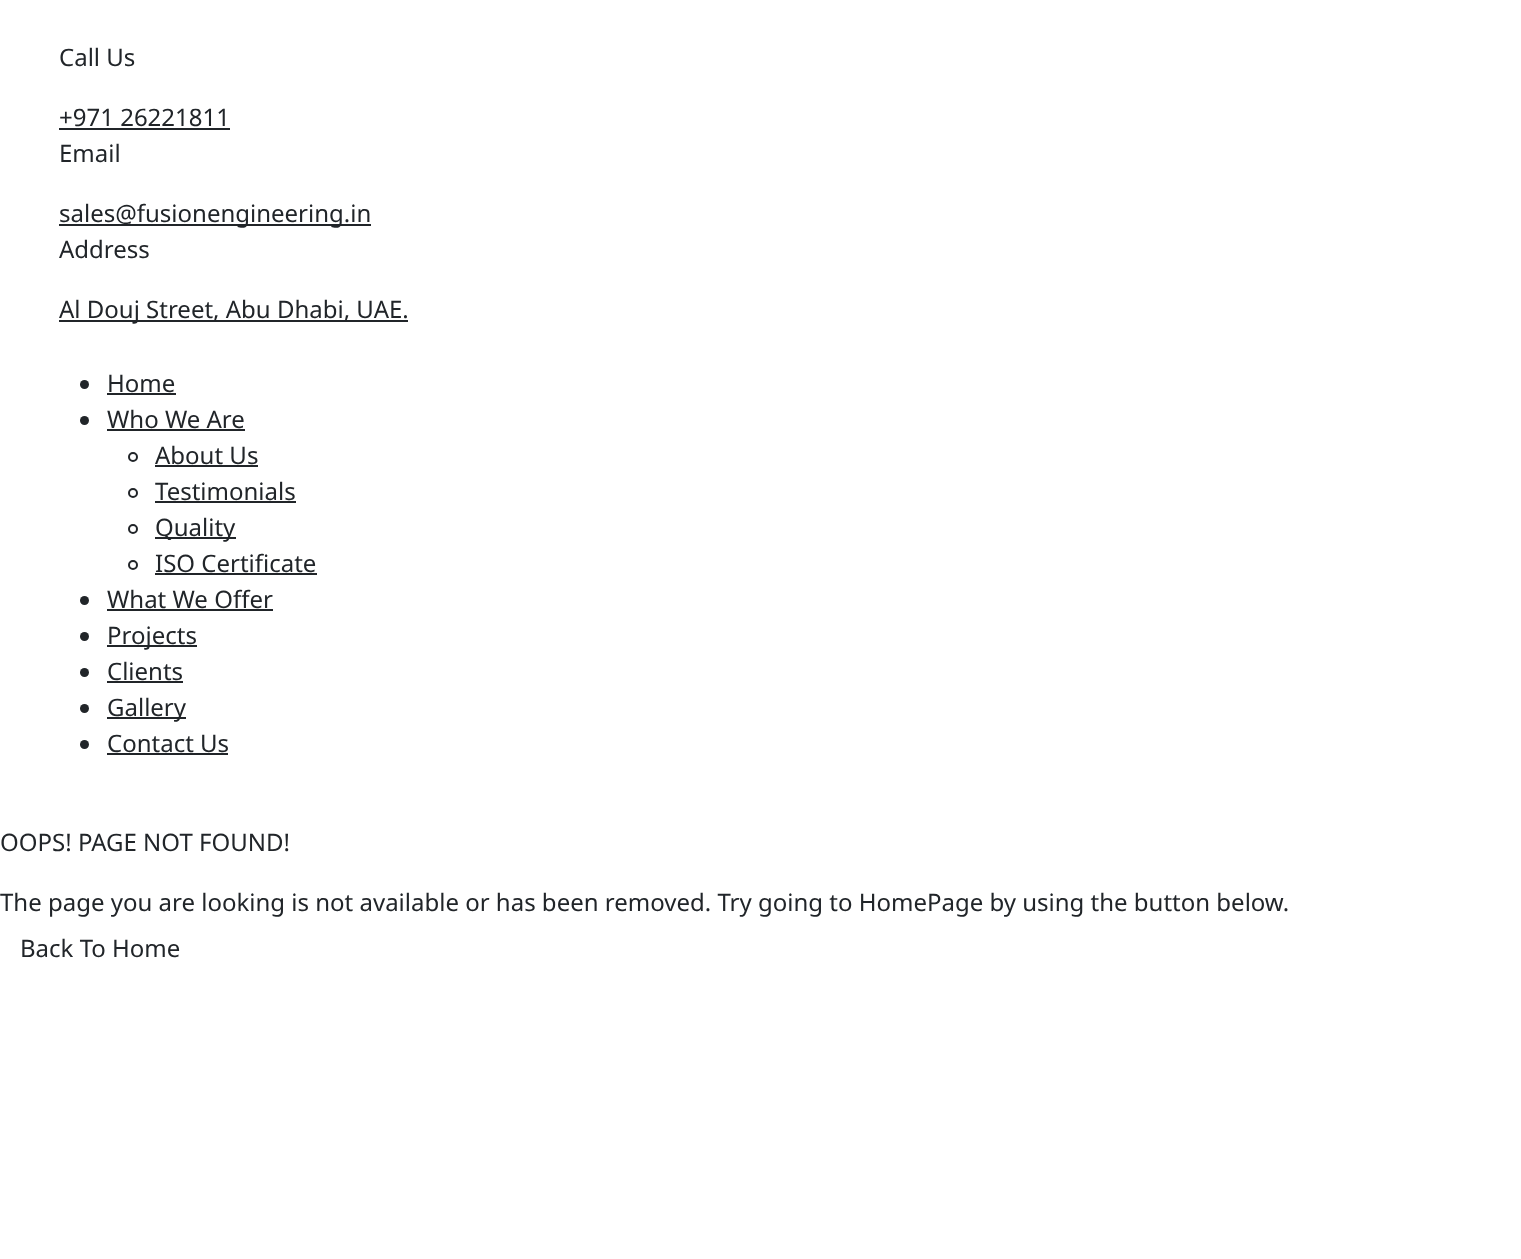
<?xml version="1.0" encoding="UTF-8"?>
<svg xmlns="http://www.w3.org/2000/svg" width="1521" height="1259">
    <rect width="100%" height="100%" fill="#FFFFFF"/>
    <text x="59" y="66" font-family="Noto Sans" font-size="24" fill="#212529">Call Us</text>
    <text x="59" y="126" font-family="Noto Sans" font-size="24" fill="#212529">+971 26221811</text>
    <rect x="59" y="128" width="171" height="2" fill="#212529"/>
    <text x="59" y="162" font-family="Noto Sans" font-size="24" fill="#212529">Email</text>
    <rect x="59" y="224" width="312" height="2" fill="#212529"/>
    <text font-family="Noto Sans" font-size="24" fill="#212529">
        <tspan x="59" y="222">sales@fusionengineering.in</tspan>
        <tspan x="59" y="258">Address</tspan>
    </text>
    <rect x="59" y="320" width="349" height="2" fill="#212529"/>
    <text x="59" y="318" font-family="Noto Sans" font-size="24" fill="#212529">Al Douj Street, Abu Dhabi, UAE.</text>
    <circle cx="84.5" cy="384.5" r="4.5" fill="#212529"/>
    <text x="107" y="392" font-family="Noto Sans" font-size="24" fill="#212529">Home</text>
    <rect x="107" y="393" width="69" height="2" fill="#212529"/>
    <circle cx="84.5" cy="420.5" r="4.5" fill="#212529"/>
    <text x="107" y="428" font-family="Noto Sans" font-size="24" fill="#212529">Who We Are</text>
    <rect x="107" y="429" width="138" height="2" fill="#212529"/>
    <circle cx="133" cy="457" r="4" fill="none" stroke="#212529" stroke-width="2"/>
    <text x="155" y="464" font-family="Noto Sans" font-size="24" fill="#212529">About Us</text>
    <rect x="155" y="465" width="103" height="2" fill="#212529"/>
    <circle cx="133" cy="493" r="4" fill="none" stroke="#212529" stroke-width="2"/>
    <text x="155" y="500" font-family="Noto Sans" font-size="24" fill="#212529">Testimonials</text>
    <rect x="155" y="501" width="141" height="2" fill="#212529"/>
    <circle cx="133" cy="529" r="4" fill="none" stroke="#212529" stroke-width="2"/>
    <rect x="155" y="537" width="81" height="2" fill="#212529"/>
    <text x="155" y="536" font-family="Noto Sans" font-size="24" fill="#212529">Quality</text>
    <circle cx="133" cy="565" r="4" fill="none" stroke="#212529" stroke-width="2"/>
    <text x="155" y="572" font-family="Noto Sans" font-size="24" fill="#212529">ISO Certificate</text>
    <rect x="155" y="573" width="162" height="2" fill="#212529"/>
    <circle cx="84.5" cy="600.5" r="4.5" fill="#212529"/>
    <text x="107" y="608" font-family="Noto Sans" font-size="24" fill="#212529">What We Offer</text>
    <rect x="107" y="609" width="166" height="2" fill="#212529"/>
    <circle cx="84.5" cy="636.5" r="4.5" fill="#212529"/>
    <rect x="107" y="645" width="90" height="2" fill="#212529"/>
    <text x="107" y="644" font-family="Noto Sans" font-size="24" fill="#212529">Projects</text>
    <circle cx="84.5" cy="672.5" r="4.5" fill="#212529"/>
    <text x="107" y="680" font-family="Noto Sans" font-size="24" fill="#212529">Clients</text>
    <rect x="107" y="681" width="76" height="2" fill="#212529"/>
    <circle cx="84.5" cy="708.5" r="4.5" fill="#212529"/>
    <rect x="107" y="717" width="79" height="2" fill="#212529"/>
    <text x="107" y="716" font-family="Noto Sans" font-size="24" fill="#212529">Gallery</text>
    <circle cx="84.5" cy="744.5" r="4.5" fill="#212529"/>
    <text x="107" y="752" font-family="Noto Sans" font-size="24" fill="#212529">Contact Us</text>
    <rect x="107" y="753" width="121" height="2" fill="#212529"/>
    <text x="0" y="851" font-family="Noto Sans" font-size="24" fill="#212529">OOPS! PAGE NOT FOUND!</text>
    <text x="0" y="911" font-family="Noto Sans" font-size="24" fill="#212529">The page you are looking is not available or has been removed. Try going to HomePage by using the button below.</text>
    <text x="20" y="957" font-family="Noto Sans" font-size="24" fill="#212529">Back To Home</text>
</svg>
